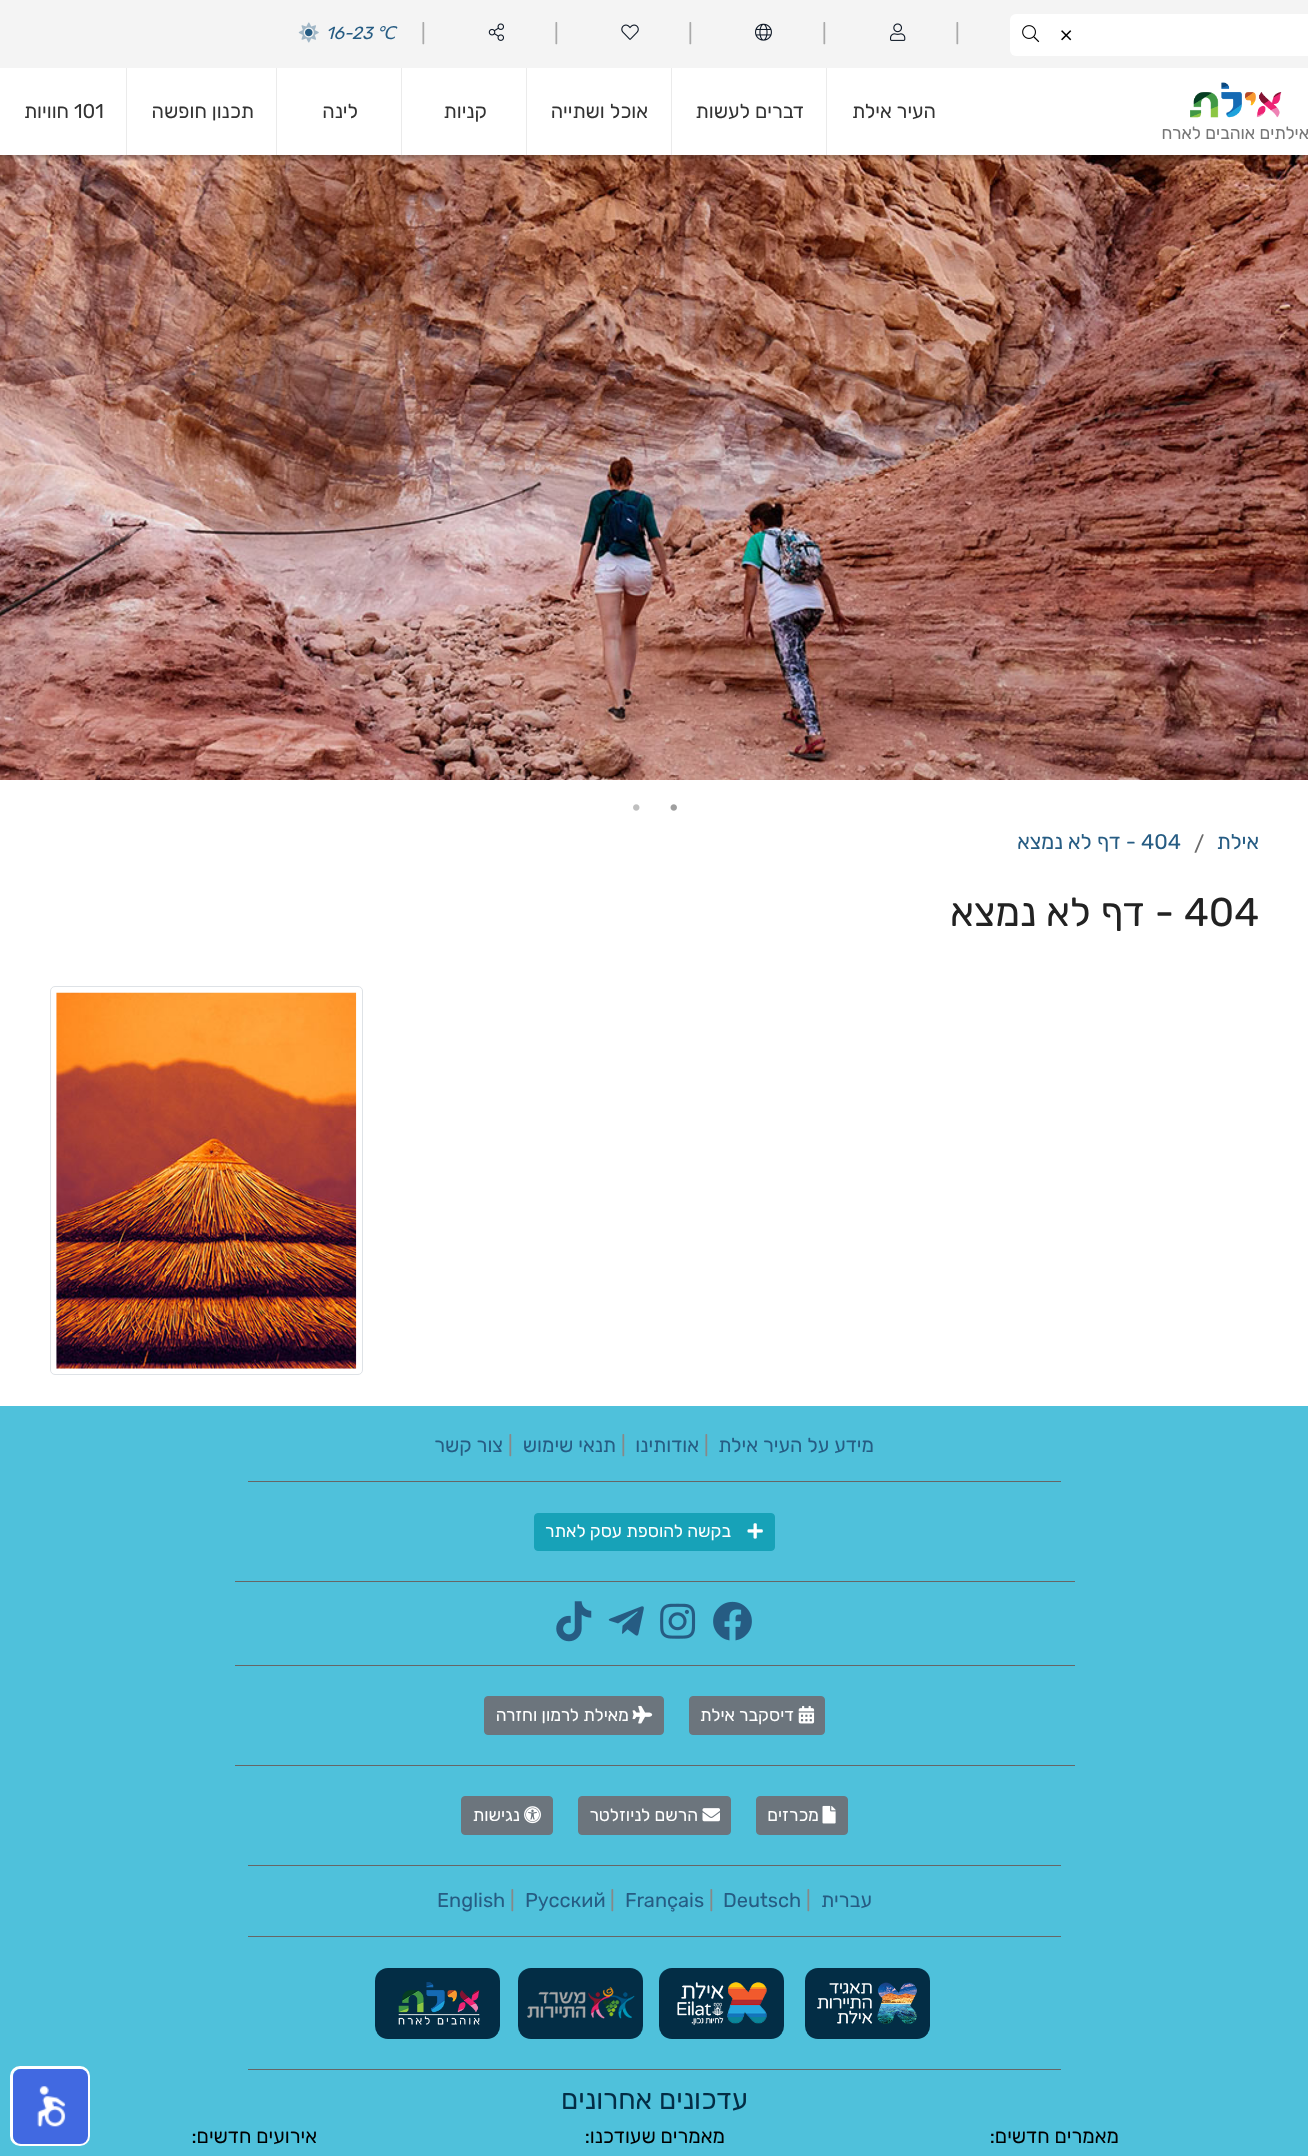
<?xml version="1.0" encoding="UTF-8"?>
<svg xmlns="http://www.w3.org/2000/svg" width="1308" height="2156">
    <defs>
        <clipPath id="clip1"><rect x="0" y="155" width="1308" height="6"/></clipPath>
        <filter id="blur1" x="-50%" y="-200%" width="200%" height="500%"><feGaussianBlur stdDeviation="2.5"/></filter>
    </defs>
    <rect width="100%" height="100%" fill="#FFFFFF"/>
    <image x="0" y="155" width="1308" height="625" href="img_10.png"/>
    <g clip-path="url(#clip1)">
        <rect x="0" y="3" width="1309" height="155" fill="#000000" fill-opacity="0.25" filter="url(#blur1)"/>
    </g>
    <rect x="0" y="0" width="1308" height="68" fill="#F4F4F4"/>
    <rect x="1010" y="14" width="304" height="42" rx="6" fill="#FFFFFF"/>
    <image x="1022" y="25" width="18" height="18" href="img_01.png"/>
    <image x="1061" y="30" width="11" height="11" href="img_02.png"/>
    <text x="955" y="40" font-family="Rubik" font-size="20" fill="#AAAAAA">|</text>
    <image x="890" y="23" width="16" height="18" href="img_03.png"/>
    <text x="822" y="40" font-family="Rubik" font-size="20" fill="#AAAAAA">|</text>
    <image x="755" y="23" width="17" height="18" href="img_04.png"/>
    <text x="688" y="40" font-family="Rubik" font-size="20" fill="#AAAAAA">|</text>
    <image x="621" y="24" width="18" height="16" href="img_05.png"/>
    <text x="554" y="40" font-family="Rubik" font-size="20" fill="#AAAAAA">|</text>
    <image x="488" y="23" width="16" height="18" href="img_06.png"/>
    <text x="421" y="40" font-family="Rubik" font-size="20" fill="#AAAAAA">|</text>
    <text x="376" y="39" font-family="DejaVu Sans" font-size="17.5" font-style="italic" fill="#265C83">℃</text>
    <text x="326" y="39" font-family="Rubik" font-size="17.5" font-style="italic" fill="#265C83">16-23</text>
    <image x="305" y="28" width="8" height="9" href="img_08.png"/>
    <image x="298" y="22" width="21" height="21" href="img_07.png"/>
    <rect x="826" y="68" width="1" height="87" fill="#EBEBEB"/>
    <text x="936" y="118" font-family="Rubik" font-size="20" direction="rtl" fill="#333333">העיר אילת</text>
    <rect x="671" y="68" width="1" height="87" fill="#EBEBEB"/>
    <text x="804" y="118" font-family="Rubik" font-size="20" direction="rtl" fill="#333333">דברים לעשות</text>
    <rect x="526" y="68" width="1" height="87" fill="#EBEBEB"/>
    <text x="648" y="118" font-family="Rubik" font-size="20" direction="rtl" fill="#333333">אוכל ושתייה</text>
    <rect x="401" y="68" width="1" height="87" fill="#EBEBEB"/>
    <text x="487" y="118" font-family="Rubik" font-size="20" direction="rtl" fill="#333333">קניות</text>
    <rect x="276" y="68" width="1" height="87" fill="#EBEBEB"/>
    <text x="358" y="118" font-family="Rubik" font-size="20" direction="rtl" fill="#333333">לינה</text>
    <rect x="126" y="68" width="1" height="87" fill="#EBEBEB"/>
    <text x="254" y="118" font-family="Rubik" font-size="20" direction="rtl" fill="#333333">תכנון חופשה</text>
    <text x="74" y="118" font-family="Rubik" font-size="20" fill="#333333">101</text>
    <text x="69" y="118" font-family="Rubik" font-size="20" direction="rtl" fill="#333333">חוויות</text>
    <image x="1190" y="82" width="92" height="36" href="img_09.png"/>
    <text x="1309" y="139" font-family="Rubik" font-size="17.5" direction="rtl" fill="#777777">אילתים אוהבים לארח</text>
    <image x="670" y="804" width="7" height="7" href="img_11.png"/>
    <image x="633" y="804" width="7" height="7" href="img_12.png"/>
    <text x="1259" y="849" font-family="Rubik" font-size="21.25" direction="rtl" fill="#265C83">אילת</text>
    <text x="1194" y="851" font-family="Rubik" font-size="21.25" fill="#6B6B6B">/</text>
    <text x="1141" y="849" font-family="Rubik" font-size="21.25" fill="#265C83">404</text>
    <text x="1136" y="849" font-family="Rubik" font-size="21.25" direction="rtl" fill="#265C83">- דף לא נמצא</text>
    <text x="1184" y="926" font-family="Rubik" font-size="40" fill="#222222">404</text>
    <text x="1174" y="926" font-family="Rubik" font-size="40" direction="rtl" fill="#222222">- דף לא נמצא</text>
    <rect x="50.5" y="986.5" width="312" height="388" rx="4.5" fill="none" stroke="#DEE2E6"/>
    <image x="56" y="992" width="301" height="377" href="img_13.png"/>
    <rect x="0" y="1406" width="1308" height="750" fill="#4FC1DB"/>
    <text x="874" y="1452" font-family="Rubik" font-size="20" direction="rtl" fill="#265C83">מידע על העיר אילת</text>
    <text x="704" y="1452" font-family="Rubik" font-size="20" fill="#888888">|</text>
    <text x="699" y="1452" font-family="Rubik" font-size="20" direction="rtl" fill="#265C83">אודותינו</text>
    <text x="621" y="1452" font-family="Rubik" font-size="20" fill="#888888">|</text>
    <text x="616" y="1452" font-family="Rubik" font-size="20" direction="rtl" fill="#265C83">תנאי שימוש</text>
    <text x="508" y="1452" font-family="Rubik" font-size="20" fill="#888888">|</text>
    <text x="503" y="1452" font-family="Rubik" font-size="20" direction="rtl" fill="#265C83">צור קשר</text>
    <rect x="248" y="1481" width="813" height="1" fill="#666666"/>
    <rect x="534.5" y="1513.5" width="240" height="37" rx="3.5" fill="#17A2B8" stroke="#17A2B8"/>
    <image x="747" y="1523" width="16" height="16" href="img_14.png"/>
    <text x="731" y="1537" font-family="Rubik" font-size="17.5" direction="rtl" fill="#FFFFFF">בקשה להוספת עסק לאתר</text>
    <rect x="235" y="1581" width="840" height="1" fill="#666666"/>
    <image x="713" y="1601" width="39" height="40" href="img_15.png"/>
    <image x="660" y="1603" width="36" height="36" href="img_16.png"/>
    <image x="608" y="1606" width="36" height="30" href="img_17.png"/>
    <image x="556" y="1601" width="36" height="41" href="img_18.png"/>
    <rect x="235" y="1665" width="840" height="1" fill="#666666"/>
    <rect x="689.5" y="1696.5" width="135" height="38" rx="3.5" fill="#6C757D" stroke="#6C757D"/>
    <image x="798" y="1705" width="17" height="19" href="img_19.png"/>
    <text x="794" y="1721" font-family="Rubik" font-size="17.5" direction="rtl" fill="#FFFFFF">דיסקבר אילת</text>
    <rect x="484.5" y="1696.5" width="179" height="38" rx="3.5" fill="#6C757D" stroke="#6C757D"/>
    <image x="632" y="1705" width="21" height="19" href="img_20.png"/>
    <text x="629" y="1721" font-family="Rubik" font-size="17.5" direction="rtl" fill="#FFFFFF">מאילת לרמון וחזרה</text>
    <rect x="235" y="1765" width="840" height="1" fill="#666666"/>
    <rect x="756.5" y="1796.5" width="91" height="38" rx="3.5" fill="#6C757D" stroke="#6C757D"/>
    <image x="822" y="1805" width="14" height="19" href="img_21.png"/>
    <text x="819" y="1821" font-family="Rubik" font-size="17.5" direction="rtl" fill="#FFFFFF">מכרזים</text>
    <rect x="578.5" y="1796.5" width="152" height="38" rx="3.5" fill="#6C757D" stroke="#6C757D"/>
    <image x="702" y="1808" width="18" height="14" href="img_22.png"/>
    <text x="698" y="1821" font-family="Rubik" font-size="17.5" direction="rtl" fill="#FFFFFF">הרשם לניוזלטר</text>
    <rect x="461.5" y="1796.5" width="91" height="38" rx="3.5" fill="#6C757D" stroke="#6C757D"/>
    <image x="524" y="1806" width="17" height="18" href="img_23.png"/>
    <text x="520" y="1821" font-family="Rubik" font-size="17.5" direction="rtl" fill="#FFFFFF">נגישות</text>
    <rect x="248" y="1865" width="813" height="1" fill="#666666"/>
    <text x="872" y="1907" font-family="Rubik" font-size="20" direction="rtl" fill="#265C83">עברית</text>
    <text x="806" y="1907" font-family="Rubik" font-size="20" fill="#888888">|</text>
    <text x="723" y="1907" font-family="Rubik" font-size="20" fill="#265C83">Deutsch</text>
    <text x="709" y="1907" font-family="Rubik" font-size="20" fill="#888888">|</text>
    <text x="625" y="1907" font-family="Rubik" font-size="20" fill="#265C83">Français</text>
    <text x="610" y="1907" font-family="Rubik" font-size="20" fill="#888888">|</text>
    <text x="525" y="1907" font-family="Rubik" font-size="20" fill="#265C83">Русский</text>
    <text x="510" y="1907" font-family="Rubik" font-size="20" fill="#888888">|</text>
    <text x="437" y="1907" font-family="Rubik" font-size="20" fill="#265C83">English</text>
    <rect x="248" y="1936" width="813" height="1" fill="#666666"/>
    <rect x="805" y="1968" width="125" height="71" rx="13" fill="#032D45"/>
    <rect x="659" y="1968" width="125" height="71" rx="13" fill="#032D45"/>
    <rect x="518" y="1968" width="125" height="71" rx="13" fill="#032D45"/>
    <rect x="375" y="1968" width="125" height="71" rx="13" fill="#032D45"/>
    <image x="817" y="1982" width="100" height="42" href="img_24.png"/>
    <image x="677" y="1982" width="90" height="43" href="img_25.png"/>
    <image x="527" y="1987" width="108" height="32" href="img_26.png"/>
    <image x="398" y="1982" width="82" height="43" href="img_27.png"/>
    <rect x="248" y="2069" width="813" height="1" fill="#666666"/>
    <text x="748" y="2109" font-family="Rubik" font-size="28" direction="rtl" fill="#032D45">עדכונים אחרונים</text>
    <text x="1119" y="2143" font-family="Rubik" font-size="20" direction="rtl" fill="#000000">מאמרים חדשים:</text>
    <text x="725" y="2143" font-family="Rubik" font-size="20" direction="rtl" fill="#000000">מאמרים שעודכנו:</text>
    <text x="317" y="2143" font-family="Rubik" font-size="20" direction="rtl" fill="#000000">אירועים חדשים:</text>
    <rect x="11.5" y="2067.5" width="77" height="77" rx="8.5" fill="none" stroke="#FFFFFF" stroke-width="3"/>
    <rect x="13" y="2069" width="75" height="75" rx="8" fill="#4169E1"/>
    <image x="37" y="2086" width="29" height="41" href="img_28.png"/>
</svg>
